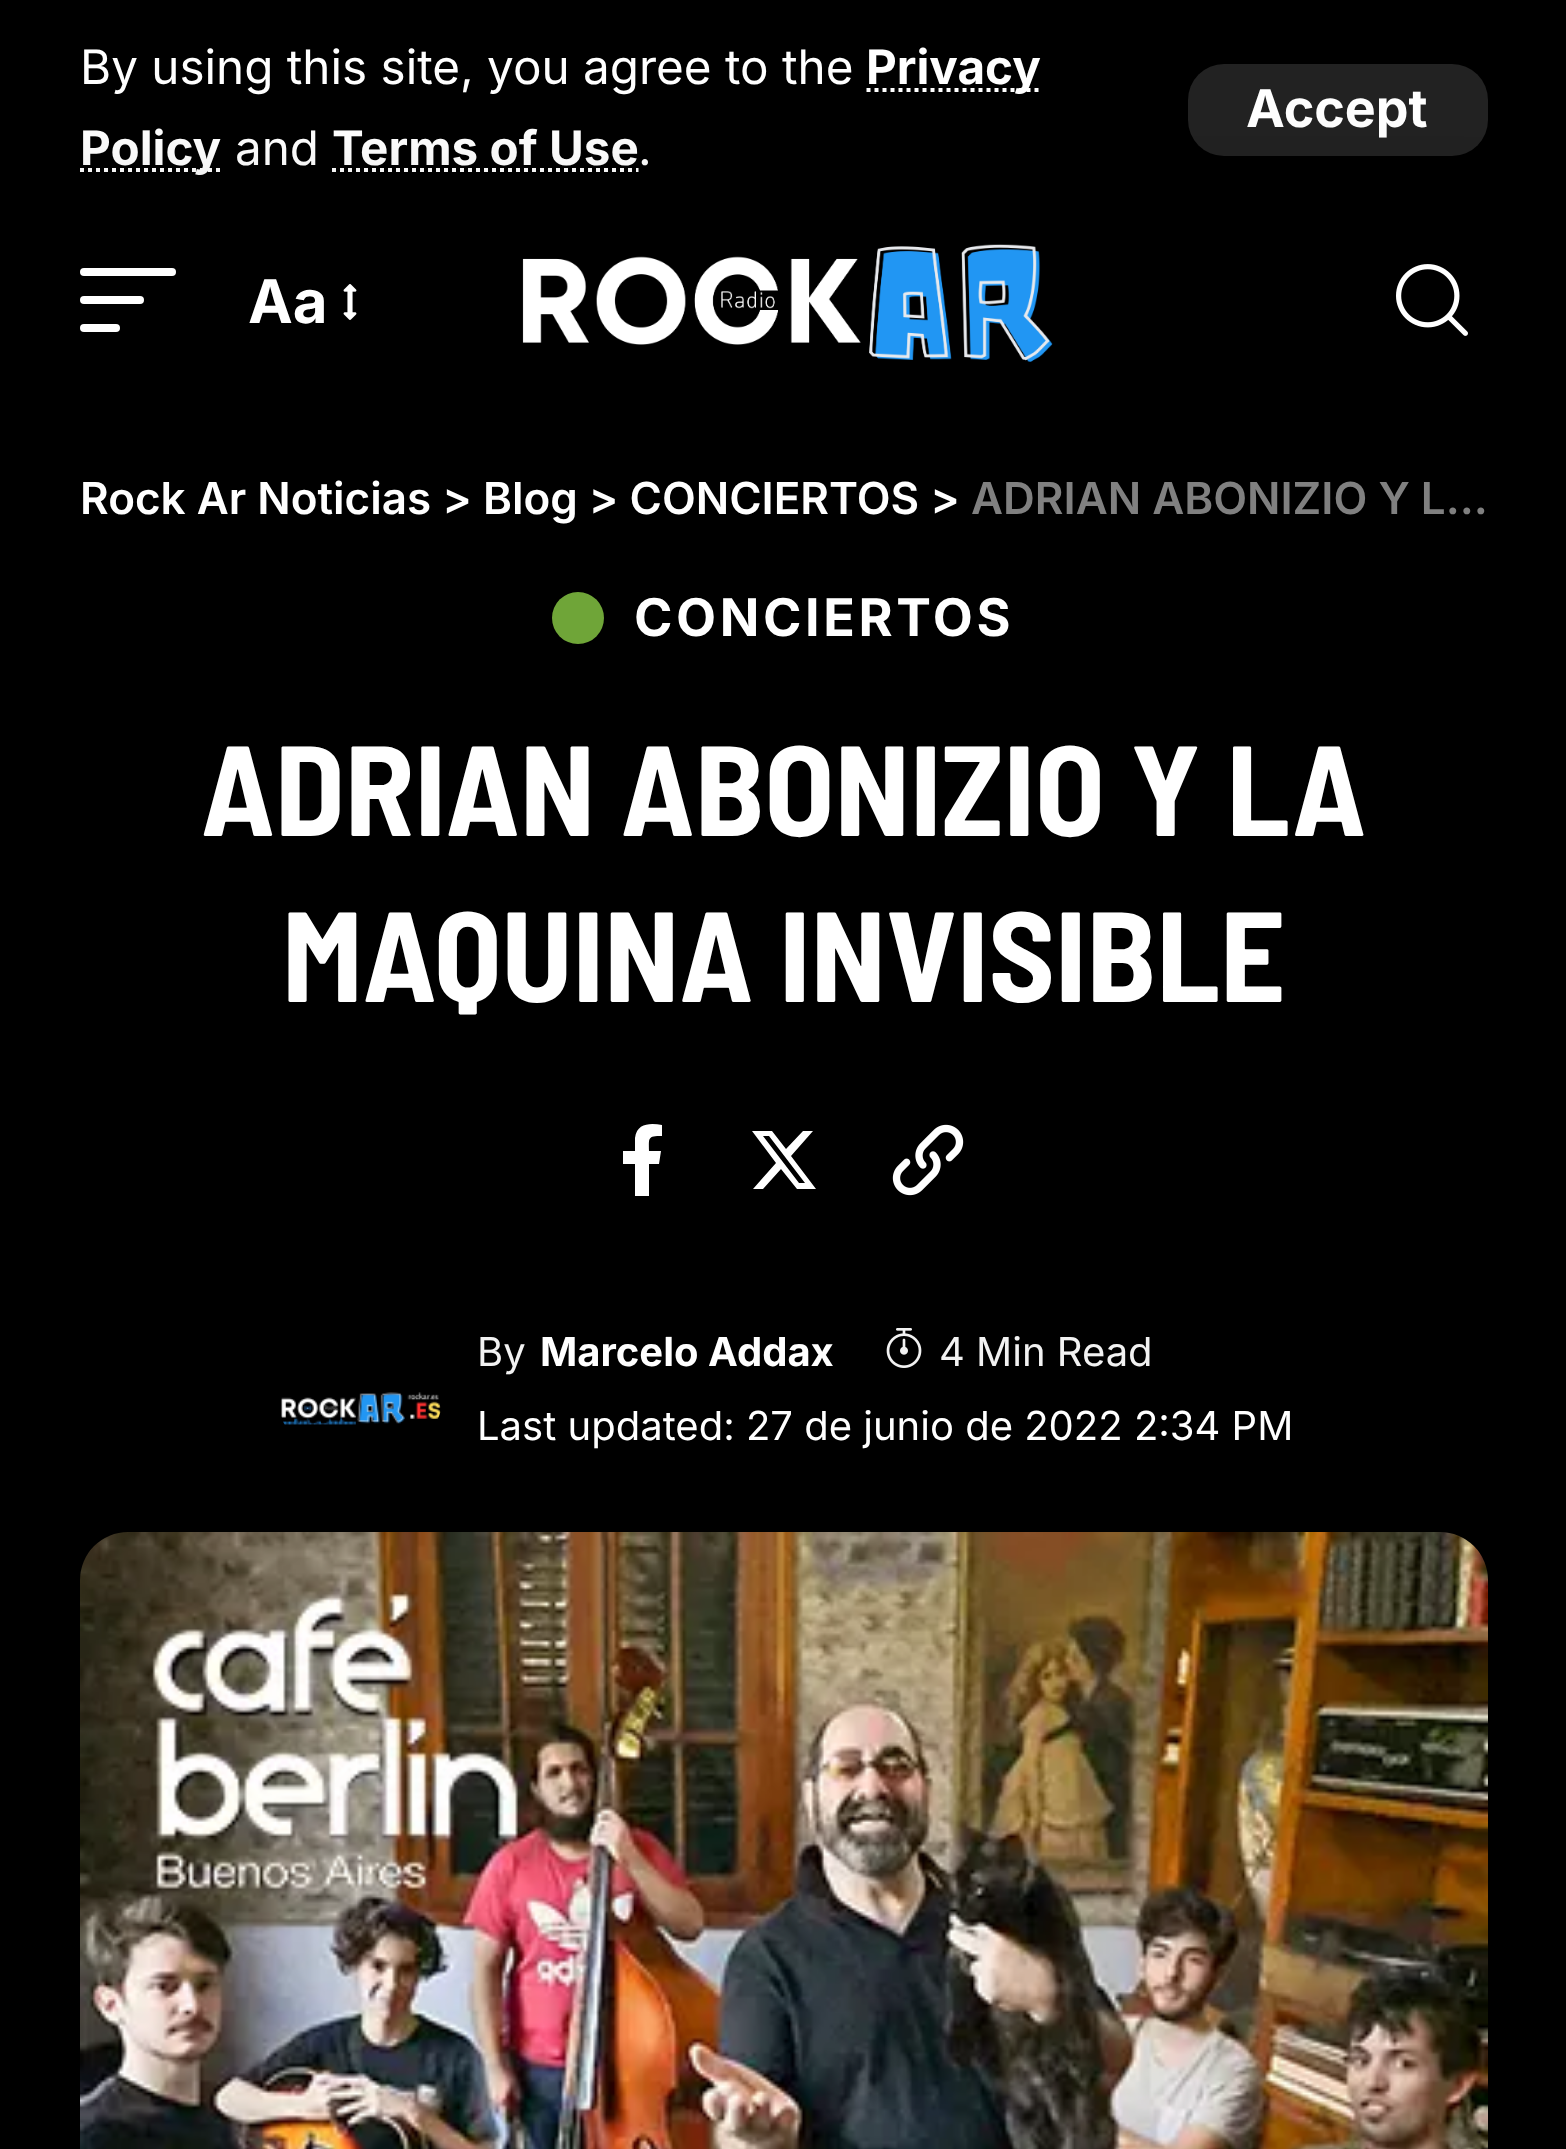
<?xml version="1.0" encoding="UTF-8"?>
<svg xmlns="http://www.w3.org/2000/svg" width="1566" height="2149">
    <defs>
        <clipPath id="clip1"><path d="M 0 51 H 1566 V 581 H 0 Z M 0 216 H 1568 V 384 H 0 Z" clip-rule="evenodd"/></clipPath>
        <filter id="blur1" x="-50%" y="-200%" width="200%" height="500%"><feGaussianBlur stdDeviation="60"/></filter>
    </defs>
    <rect width="100%" height="100%" fill="#000000"/>
    <text x="80" y="84" font-family="Inter" font-size="47.6" fill="#FFFFFF">By using this site, you agree to the</text>
    <path d="M 866.5 90 H 1041" fill="none" stroke="#FFFFFF" stroke-width="4" stroke-dasharray="4 4"/>
    <text x="866" y="84" font-family="Inter" font-size="47.6" font-weight="700" fill="#FFFFFF">Privacy</text>
    <path d="M 80 170 H 221" fill="none" stroke="#FFFFFF" stroke-width="4" stroke-dasharray="4 4"/>
    <text x="80" y="165" font-family="Inter" font-size="47.6" font-weight="700" fill="#FFFFFF">Policy</text>
    <text x="235" y="165" font-family="Inter" font-size="47.6" fill="#FFFFFF">and</text>
    <text x="332" y="165" font-family="Inter" font-size="47.6" font-weight="700" fill="#FFFFFF">Terms of Use</text>
    <path d="M 332 170 H 638.5" fill="none" stroke="#FFFFFF" stroke-width="4" stroke-dasharray="4 4"/>
    <text x="638" y="165" font-family="Inter" font-size="47.6" fill="#FFFFFF">.</text>
    <rect x="1188" y="64" width="300" height="92" rx="36" fill="#222222"/>
    <text x="1246" y="127" font-family="Inter" font-size="52" font-weight="700" fill="#FFFFFF">Accept</text>
    <g clip-path="url(#clip1)">
        <rect x="0" y="232" width="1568" height="168" fill="#000000" fill-opacity="0.3" filter="url(#blur1)"/>
    </g>
    <rect x="80" y="268" width="96" height="8" rx="4" fill="#FFFFFF"/>
    <rect x="80" y="296" width="64" height="8" rx="4" fill="#FFFFFF"/>
    <rect x="80" y="324" width="40" height="8" rx="4" fill="#FFFFFF"/>
    <text x="248" y="323" font-family="Inter" font-size="60" font-weight="700" fill="#FFFFFF">Aa</text>
    <image x="343" y="284" width="14" height="36" href="img_01.png"/>
    <image x="522" y="244" width="531" height="118" href="img_02.png"/>
    <image x="1396" y="264" width="72" height="72" href="img_03.png"/>
    <text x="80" y="514" font-family="Inter" font-size="44" font-weight="600" fill="#FFFFFF">Rock Ar Noticias &gt; Blog &gt; CONCIERTOS &gt;</text>
    <text x="971" y="514" font-family="Inter" font-size="44" font-weight="600" fill="#808080">ADRIAN ABONIZIO Y L…</text>
    <circle cx="578" cy="618" r="26" fill="#6FA538"/>
    <text x="634" y="636" font-family="Inter" font-size="52" font-weight="700" letter-spacing="3.6" fill="#FFFFFF">CONCIERTOS</text>
    <text x="201" y="836" font-family="Barlow Semi Condensed" font-size="128" font-weight="700" fill="#FFFFFF">ADRIAN ABONIZIO Y LA</text>
    <text x="282" y="1002" font-family="Barlow Semi Condensed" font-size="128" font-weight="700" fill="#FFFFFF">MAQUINA INVISIBLE</text>
    <path d="M 659 1164 L 661 1151 H 649 C 649 1138 647 1136 662 1136 V 1125 C 650 1123 637 1123 635 1138 V 1151 H 623 V 1164 H 635 V 1196 H 649 V 1164 Z" fill="#FFFFFF"/>
    <path d="M 803 1131 H 813 L 791 1156 L 816 1189 H 797 L 781 1169 L 763 1189 H 753 L 776 1163 L 752 1131 H 772 L 786 1149 Z M 799 1183 H 805 L 769 1136 H 763 Z" fill="#FFFFFF"/>
    <image x="892" y="1124" width="72" height="72" href="img_04.png"/>
    <image x="281" y="1392" width="160" height="33" href="img_05.png"/>
    <text x="477" y="1366" font-family="Inter" font-size="40" fill="#F2F2F2">By</text>
    <text x="540" y="1366" font-family="Inter" font-size="40" font-weight="700" fill="#FFFFFF">Marcelo Addax</text>
    <image x="886" y="1328" width="36" height="40" href="img_06.png"/>
    <text x="939" y="1366" font-family="Inter" font-size="40" fill="#F2F2F2">4 Min Read</text>
    <text x="477" y="1440" font-family="Inter" font-size="40" fill="#FFFFFF">Last updated: 27 de junio de 2022 2:34 PM</text>
    <image x="80" y="1532" width="1408" height="617" href="img_07.png"/>
</svg>
